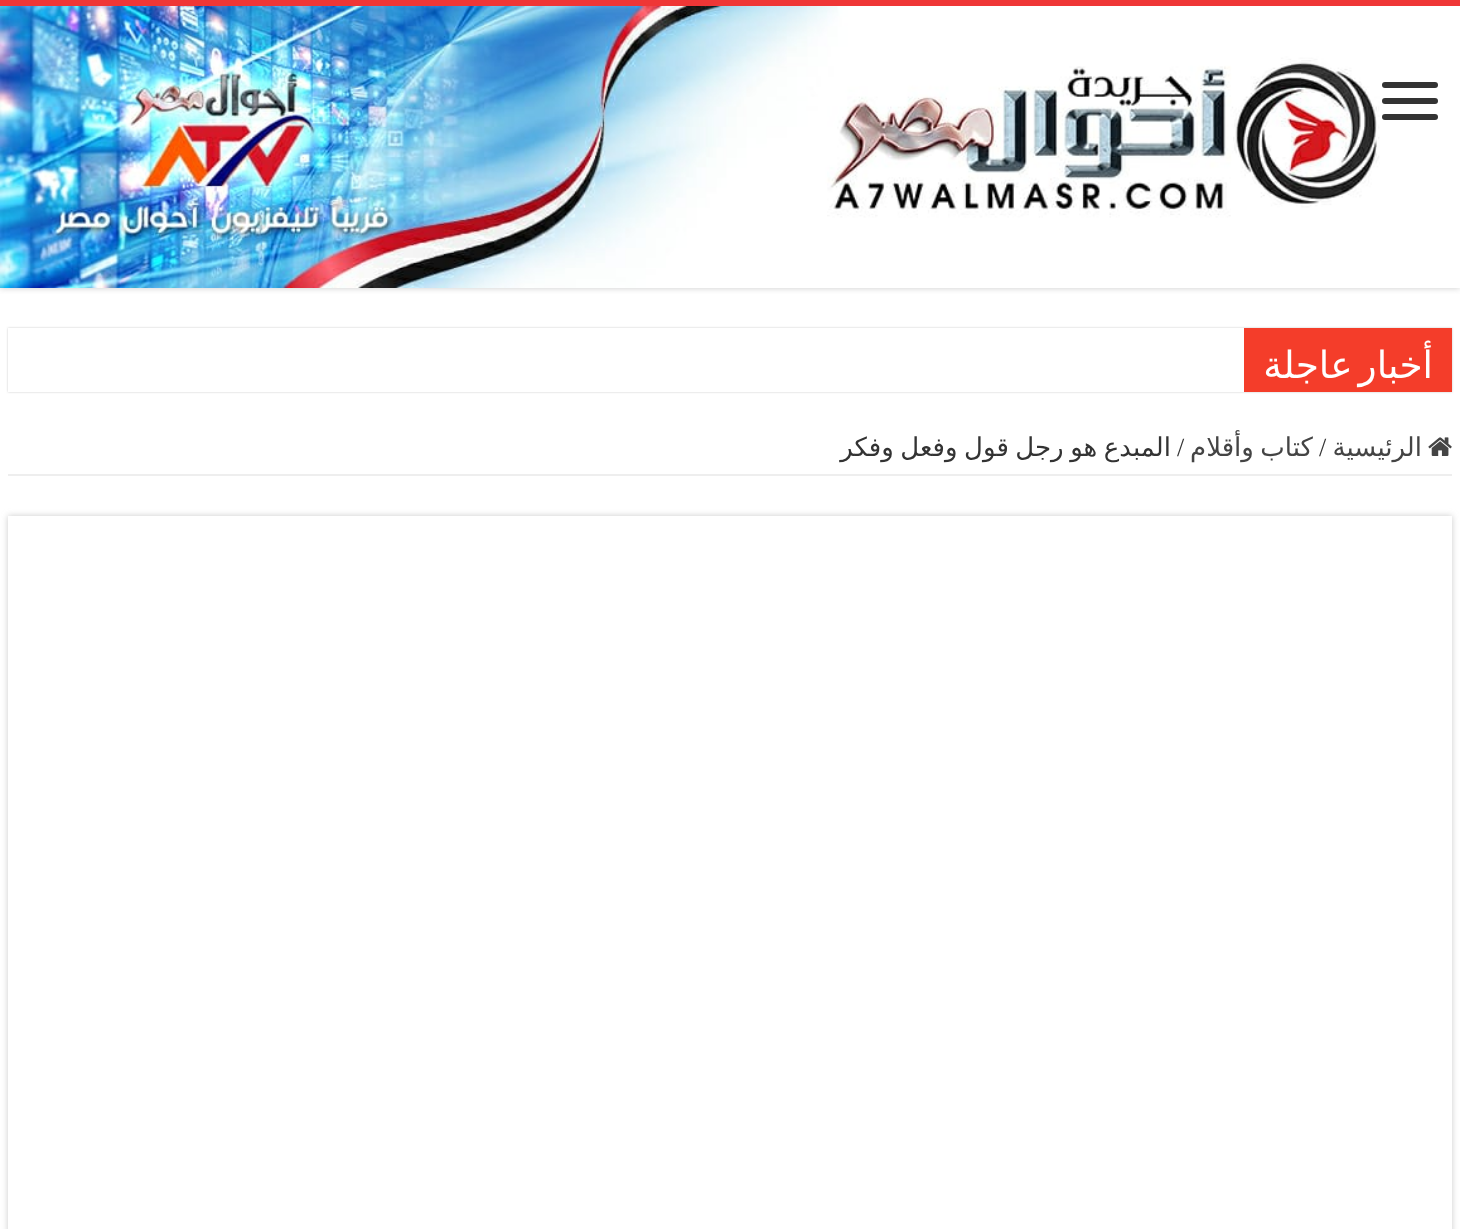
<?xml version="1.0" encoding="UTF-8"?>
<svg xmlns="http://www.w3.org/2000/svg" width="1460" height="1229">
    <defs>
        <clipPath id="clip1"><rect x="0" y="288" width="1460" height="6"/></clipPath>
        <filter id="blur1" x="-50%" y="-200%" width="200%" height="500%"><feGaussianBlur stdDeviation="3"/></filter>
        <clipPath id="clip2"><path d="M 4 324 H 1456 V 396 H 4 Z M 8 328 H 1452 V 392 H 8 Z" clip-rule="evenodd"/></clipPath>
        <filter id="blur2" x="-50%" y="-200%" width="200%" height="500%"><feGaussianBlur stdDeviation="1"/></filter>
        <clipPath id="clip3"><path d="M 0 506 H 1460 V 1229 H 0 Z M 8 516 H 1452 V 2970 H 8 Z" clip-rule="evenodd"/></clipPath>
    </defs>
    <rect width="100%" height="100%" fill="#FFFFFF"/>
    <g clip-path="url(#clip1)">
        <rect x="0" y="0" width="1460" height="288" fill="#CACACA" filter="url(#blur1)"/>
    </g>
    <rect x="0" y="0" width="1460" height="6" fill="#EF3636"/>
    <rect x="1382" y="82" width="56" height="6" rx="3" fill="#333333"/>
    <rect x="1382" y="98" width="56" height="6" rx="3" fill="#333333"/>
    <rect x="1382" y="114" width="56" height="6" rx="3" fill="#333333"/>
    <image x="0" y="6" width="1380" height="282" href="img_01.png"/>
    <g clip-path="url(#clip2)">
        <rect x="8" y="328" width="1444" height="64" fill="#CACACA" filter="url(#blur2)"/>
    </g>
    <rect x="1244" y="328" width="208" height="64" fill="#F43D2A"/>
    <text x="1433" y="378" word-spacing="-6" font-family="DejaVu Sans" font-size="37.5" direction="rtl" fill="#FFFFFF">أخبار عاجلة</text>
    <rect x="8" y="474" width="1444" height="2" fill="#EEEEEE"/>
    <image x="1428" y="437" width="24" height="19" href="img_02.png"/>
    <text x="1422" y="456" font-family="DejaVu Sans" font-size="26" direction="rtl" fill="#444444">الرئيسية</text>
    <text x="1319" y="456" font-family="Liberation Serif" font-size="26" fill="#333333">/</text>
    <text x="1313" y="456" word-spacing="-1.75" font-family="DejaVu Sans" font-size="26" direction="rtl" fill="#444444">كتاب وأقلام</text>
    <text x="1177" y="456" font-family="Liberation Serif" font-size="26" fill="#333333">/</text>
    <text x="1171" y="456" word-spacing="-1.75" font-family="DejaVu Sans" font-size="26" direction="rtl" fill="#333333">المبدع هو رجل قول وفعل وفكر</text>
    <g clip-path="url(#clip3)">
        <rect x="8" y="516" width="1444" height="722" fill="#CACACA" filter="url(#blur1)"/>
    </g>
</svg>
